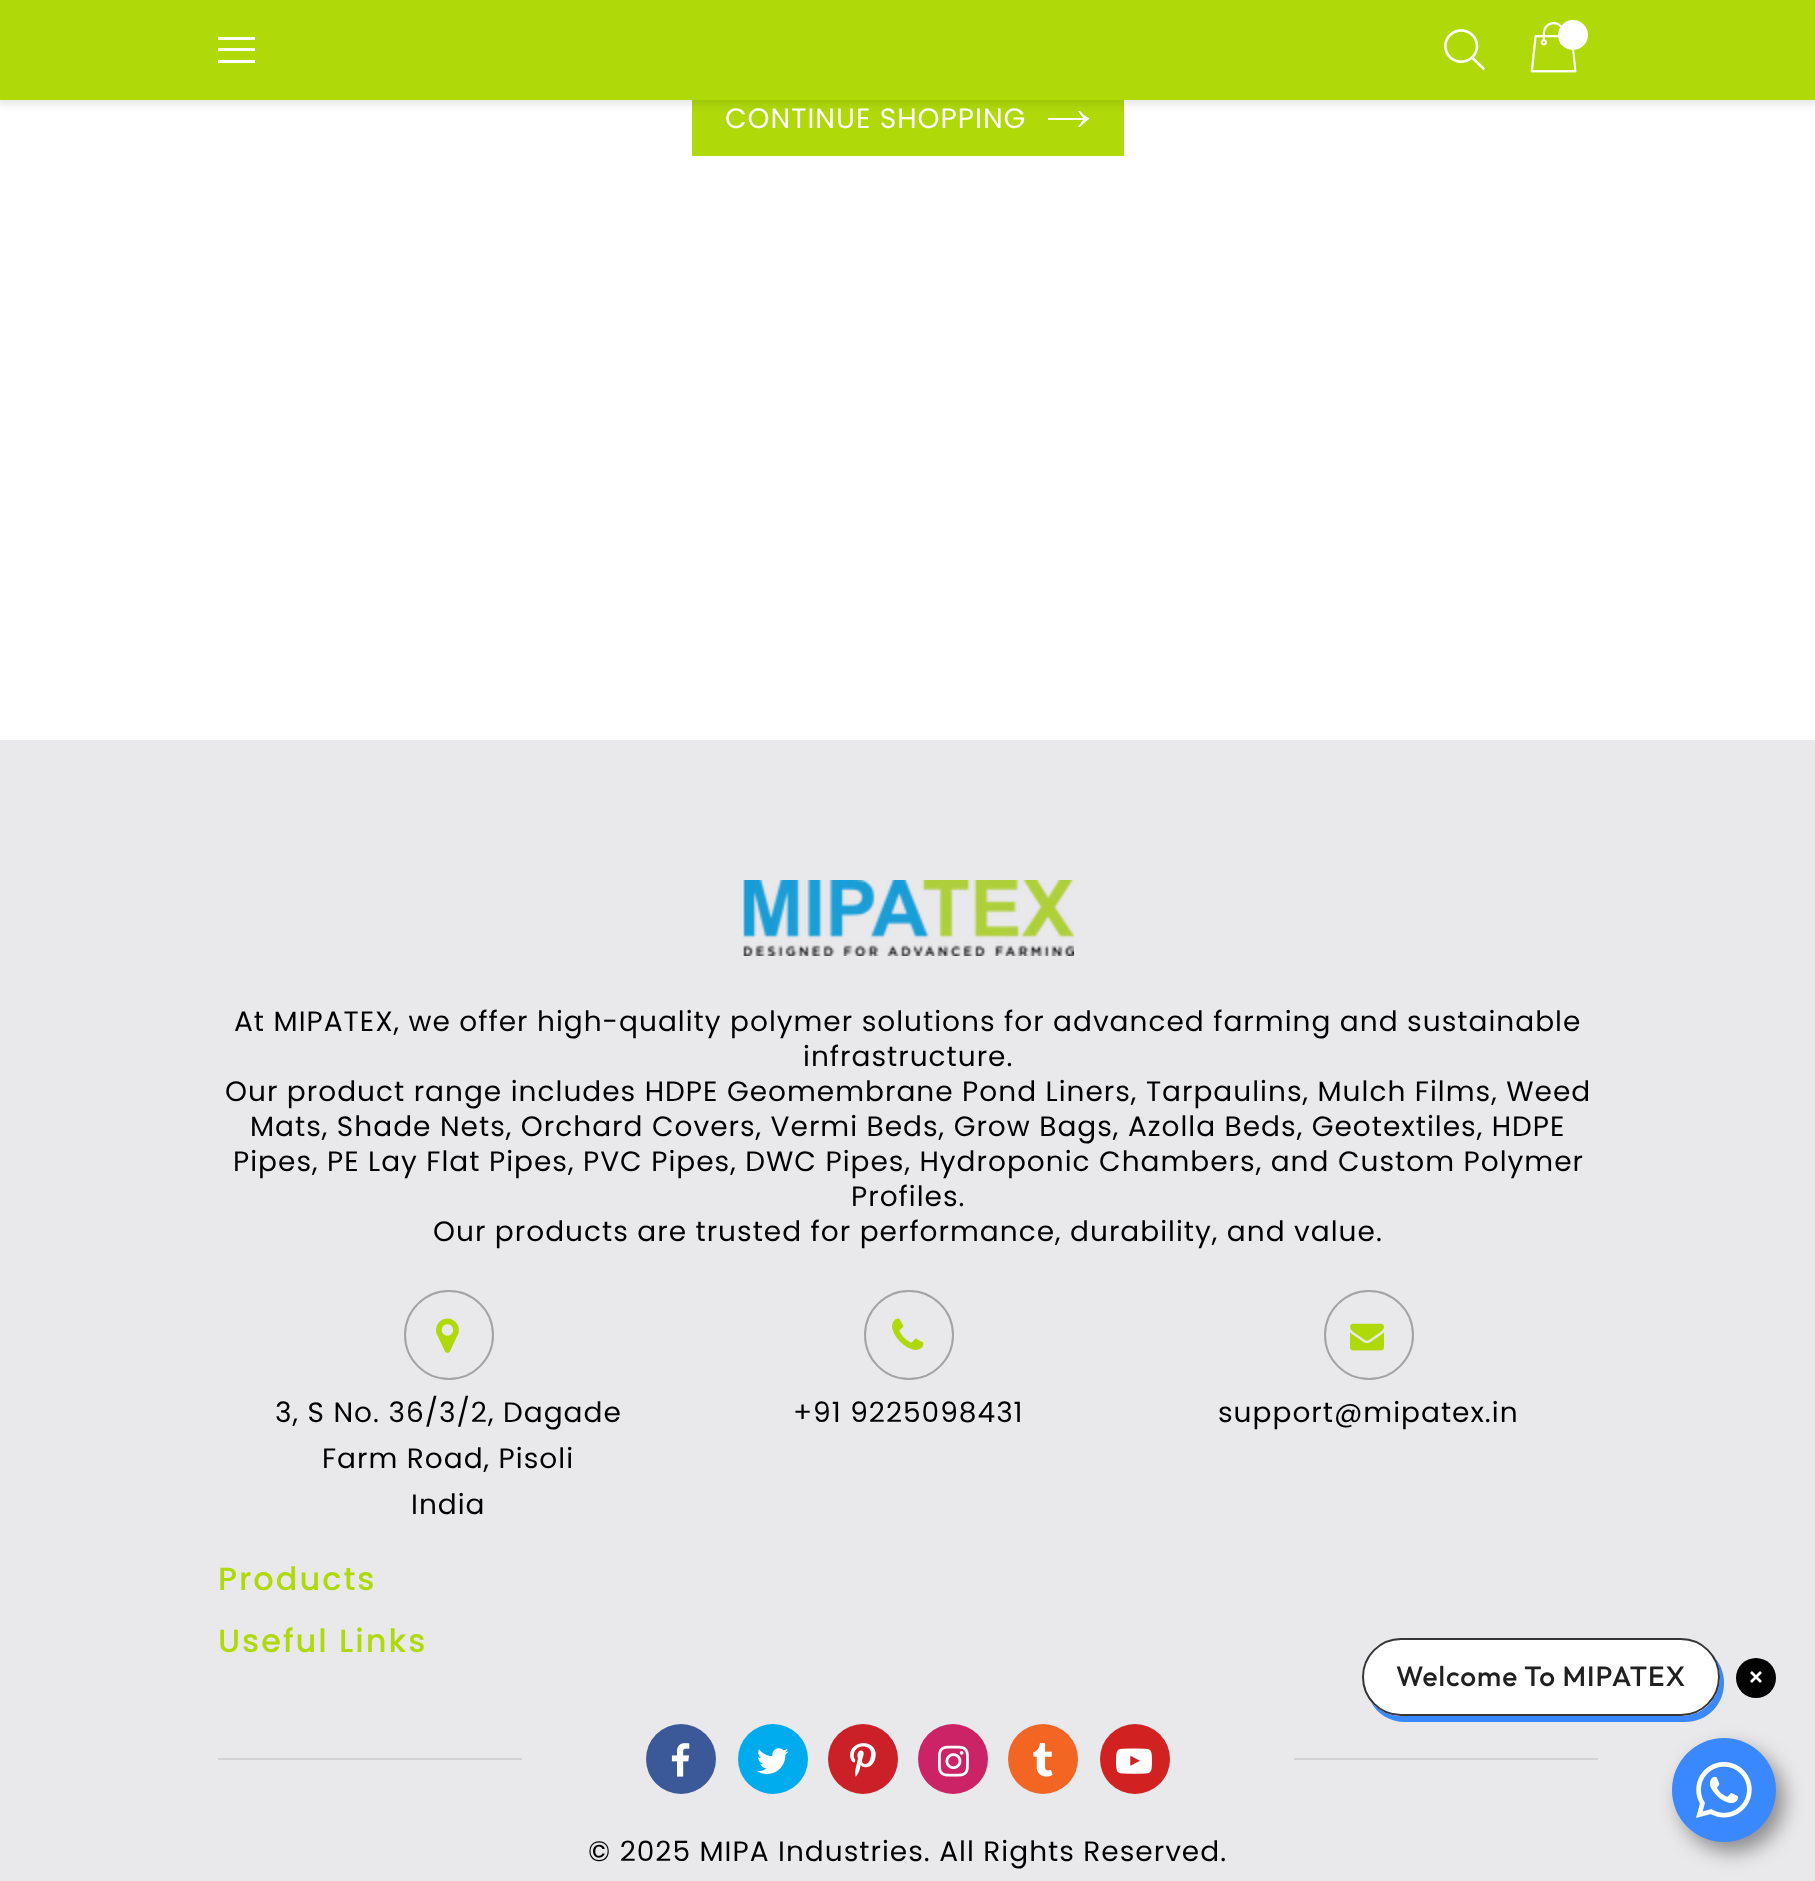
<?xml version="1.0" encoding="UTF-8"?>
<svg xmlns="http://www.w3.org/2000/svg" width="1815" height="1881">
    <defs>
        <filter id="blur1" x="-50%" y="-200%" width="200%" height="500%"><feGaussianBlur stdDeviation="4"/></filter>
        <filter id="blur2" x="-50%" y="-200%" width="200%" height="500%"><feGaussianBlur stdDeviation="10"/></filter>
    </defs>
    <rect width="100%" height="100%" fill="#FFFFFF"/>
    <rect x="692" y="100" width="432" height="56" fill="#AFD909"/>
    <path d="M 1080 111 C 1083 114 1086 117 1089 118 V 119 C 1086 121 1083 124 1080 127 H 1078 L 1083 120 H 1048 V 118 H 1083 L 1078 111 Z" fill="#FFFFFF" fill-rule="evenodd"/>
    <rect x="-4" y="-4" width="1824" height="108" fill="#000000" fill-opacity="0.1" filter="url(#blur1)"/>
    <rect x="0" y="0" width="1815" height="100" fill="#AFD909"/>
    <rect x="218" y="37" width="37" height="3" fill="#FFFFFF"/>
    <rect x="218" y="48" width="37" height="3" fill="#FFFFFF"/>
    <rect x="218" y="60" width="37" height="3" fill="#FFFFFF"/>
    <image x="1444" y="29" width="41" height="41" href="img_01.png"/>
    <image x="1530" y="22" width="47" height="51" href="img_02.png"/>
    <circle cx="1573" cy="35" r="15" fill="#FFFFFF"/>
    <text x="725" y="128" font-family="Poppins" font-size="28" letter-spacing="1" fill="#FFFFFF">CONTINUE SHOPPING</text>
    <rect x="0" y="740" width="1815" height="1141" fill="#E9E8EB"/>
    <image x="743" y="880" width="331" height="76" href="img_03.png"/>
    <text x="234" y="1031" font-family="Poppins" font-size="28" letter-spacing="1" fill="#000000">At MIPATEX, we offer high-quality polymer solutions for advanced farming and sustainable</text>
    <text x="803" y="1066" font-family="Poppins" font-size="28" letter-spacing="1" fill="#000000">infrastructure.</text>
    <text x="225" y="1101" font-family="Poppins" font-size="28" letter-spacing="1" fill="#000000">Our product range includes HDPE Geomembrane Pond Liners, Tarpaulins, Mulch Films, Weed</text>
    <text x="250" y="1136" font-family="Poppins" font-size="28" letter-spacing="1" fill="#000000">Mats, Shade Nets, Orchard Covers, Vermi Beds, Grow Bags, Azolla Beds, Geotextiles, HDPE</text>
    <text x="233" y="1171" font-family="Poppins" font-size="28" letter-spacing="1" fill="#000000">Pipes, PE Lay Flat Pipes, PVC Pipes, DWC Pipes, Hydroponic Chambers, and Custom Polymer</text>
    <text x="851" y="1206" font-family="Poppins" font-size="28" letter-spacing="1" fill="#000000">Profiles.</text>
    <text x="433" y="1241" font-family="Poppins" font-size="28" letter-spacing="1" fill="#000000">Our products are trusted for performance, durability, and value.</text>
    <circle cx="449" cy="1335" r="44" fill="none" stroke="#A3A2A5" stroke-width="2"/>
    <image x="436" y="1318" width="23" height="35" href="img_04.png"/>
    <text x="275" y="1422" font-family="Poppins" font-size="28" letter-spacing="1" fill="#000000">3, S No. 36/3/2, Dagade</text>
    <text x="322" y="1468" font-family="Poppins" font-size="28" letter-spacing="1" fill="#000000">Farm Road, Pisoli</text>
    <text x="411" y="1514" font-family="Poppins" font-size="28" letter-spacing="1" fill="#000000">India</text>
    <circle cx="909" cy="1335" r="44" fill="none" stroke="#A3A2A5" stroke-width="2"/>
    <image x="892" y="1318" width="32" height="32" href="img_05.png"/>
    <text x="793" y="1422" font-family="Poppins" font-size="28" letter-spacing="1" fill="#000000">+91 9225098431</text>
    <circle cx="1369" cy="1335" r="44" fill="none" stroke="#A3A2A5" stroke-width="2"/>
    <image x="1350" y="1323" width="34" height="28" href="img_06.png"/>
    <text x="1218" y="1422" font-family="Poppins" font-size="28" letter-spacing="1" fill="#000000">support@mipatex.in</text>
    <text font-family="Poppins" font-size="32" font-weight="500" letter-spacing="2" fill="#AFD909">
        <tspan x="218" y="1590">Products</tspan>
        <tspan x="218" y="1652">Useful Links</tspan>
    </text>
    <rect x="218" y="1758" width="304" height="2" fill="#D2D1D4"/>
    <circle cx="681" cy="1759" r="35" fill="#3B5999"/>
    <image x="671" y="1743" width="19" height="34" href="img_07.png"/>
    <circle cx="773" cy="1759" r="35" fill="#00ACED"/>
    <image x="757" y="1748" width="32" height="26" href="img_08.png"/>
    <circle cx="863" cy="1759" r="35" fill="#CB2027"/>
    <image x="850" y="1743" width="26" height="34" href="img_09.png"/>
    <circle cx="953" cy="1759" r="35" fill="#CC2366"/>
    <image x="938" y="1745" width="31" height="32" href="img_10.png"/>
    <circle cx="1043" cy="1759" r="35" fill="#F26522"/>
    <image x="1033" y="1743" width="20" height="34" href="img_11.png"/>
    <circle cx="1135" cy="1759" r="35" fill="#D12121"/>
    <image x="1116" y="1748" width="36" height="26" href="img_12.png"/>
    <rect x="1294" y="1758" width="304" height="2" fill="#D2D1D4"/>
    <text x="588" y="1861" font-family="Poppins" font-size="28" letter-spacing="1" fill="#000000">© 2025 MIPA Industries. All Rights Reserved.</text>
    <rect x="1680" y="1748" width="104" height="104" rx="52" fill="#000000" fill-opacity="0.4" filter="url(#blur2)"/>
    <path d="M 1371 1702 C 1377 1714 1390 1722 1405 1722 H 1685 C 1707 1722 1724 1705 1724 1683 C 1724 1674 1721 1665 1715 1658 C 1718 1664 1720 1670 1720 1677 C 1720 1699 1703 1716 1681 1716 H 1401 C 1389 1716 1378 1710 1371 1702 Z" fill="#3A88FE"/>
    <rect x="1363" y="1639" width="356" height="76" rx="38" fill="#FFFFFF" stroke="#363636" stroke-width="2"/>
    <text x="1396" y="1686" font-family="Outfit" font-size="28" font-weight="500" letter-spacing="1" fill="#202020">Welcome To MIPATEX</text>
    <circle cx="1756" cy="1678" r="20" fill="#000000"/>
    <path d="M 1751 1672 L 1761 1682 M 1751 1682 L 1761 1672" fill="none" stroke="#FFFFFF" stroke-width="2.7"/>
    <circle cx="1724" cy="1790" r="52" fill="#3A88FE"/>
    <image x="1696" y="1762" width="56" height="56" href="img_13.png"/>
</svg>
